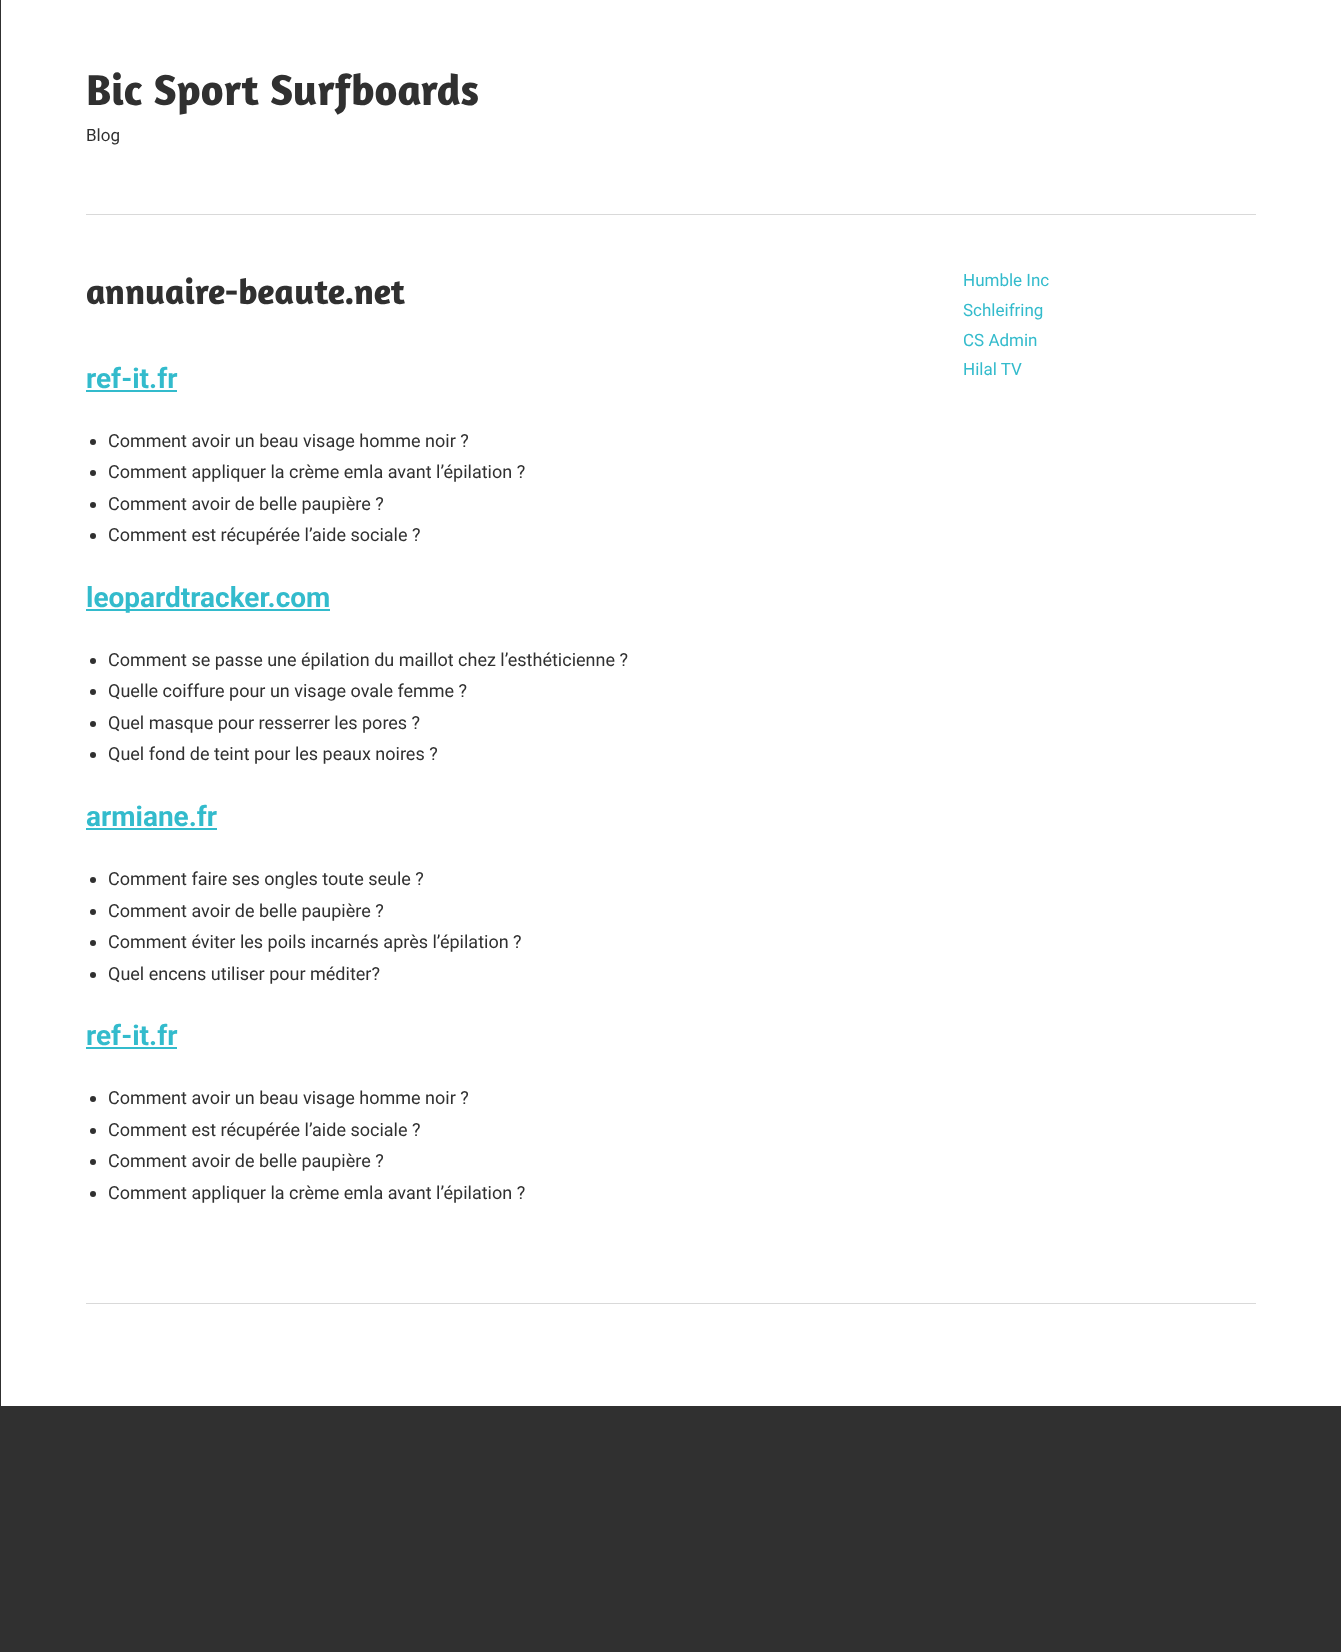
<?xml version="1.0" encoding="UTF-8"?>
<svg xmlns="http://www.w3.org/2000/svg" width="1341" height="1652">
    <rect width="100%" height="100%" fill="#303030"/>
    <rect x="1" y="0" width="1340" height="1406" fill="#FFFFFF"/>
    <text x="86" y="105" font-family="Amaranth" font-size="44" font-weight="700" fill="#303030">Bic Sport Surfboards</text>
    <text x="86" y="141" font-family="Roboto" font-size="17" fill="#303030">Blog</text>
    <rect x="86" y="214" width="1170" height="1" fill="#D9D9D9"/>
    <text x="86" y="304" font-family="Amaranth" font-size="36" font-weight="700" fill="#303030">annuaire-beaute.net</text>
    <text x="86" y="388" font-family="Roboto" font-size="28" font-weight="700" fill="#33BBCC">ref-it.fr</text>
    <rect x="86" y="390" width="91" height="2" fill="#33BBCC"/>
    <circle cx="93" cy="442" r="3" fill="#303030"/>
    <text x="108" y="447" font-family="Roboto" font-size="18" fill="#303030">Comment avoir un beau visage homme noir ?</text>
    <circle cx="93" cy="473" r="3" fill="#303030"/>
    <text x="108" y="478" font-family="Roboto" font-size="18" fill="#303030">Comment appliquer la crème emla avant l’épilation ?</text>
    <circle cx="93" cy="505" r="3" fill="#303030"/>
    <text x="108" y="510" font-family="Roboto" font-size="18" fill="#303030">Comment avoir de belle paupière ?</text>
    <circle cx="93" cy="536" r="3" fill="#303030"/>
    <text x="108" y="541" font-family="Roboto" font-size="18" fill="#303030">Comment est récupérée l’aide sociale ?</text>
    <rect x="86" y="609" width="244" height="2" fill="#33BBCC"/>
    <text x="86" y="607" font-family="Roboto" font-size="28" font-weight="700" fill="#33BBCC">leopardtracker.com</text>
    <circle cx="93" cy="661" r="3" fill="#303030"/>
    <text x="108" y="666" font-family="Roboto" font-size="18" fill="#303030">Comment se passe une épilation du maillot chez l’esthéticienne ?</text>
    <circle cx="93" cy="692" r="3" fill="#303030"/>
    <text x="108" y="697" font-family="Roboto" font-size="18" fill="#303030">Quelle coiffure pour un visage ovale femme ?</text>
    <circle cx="93" cy="724" r="3" fill="#303030"/>
    <text x="108" y="729" font-family="Roboto" font-size="18" fill="#303030">Quel masque pour resserrer les pores ?</text>
    <circle cx="93" cy="755" r="3" fill="#303030"/>
    <text x="108" y="760" font-family="Roboto" font-size="18" fill="#303030">Quel fond de teint pour les peaux noires ?</text>
    <text x="86" y="826" font-family="Roboto" font-size="28" font-weight="700" fill="#33BBCC">armiane.fr</text>
    <rect x="86" y="828" width="131" height="2" fill="#33BBCC"/>
    <circle cx="93" cy="880" r="3" fill="#303030"/>
    <text x="108" y="885" font-family="Roboto" font-size="18" fill="#303030">Comment faire ses ongles toute seule ?</text>
    <circle cx="93" cy="912" r="3" fill="#303030"/>
    <text x="108" y="917" font-family="Roboto" font-size="18" fill="#303030">Comment avoir de belle paupière ?</text>
    <circle cx="93" cy="943" r="3" fill="#303030"/>
    <text x="108" y="948" font-family="Roboto" font-size="18" fill="#303030">Comment éviter les poils incarnés après l’épilation ?</text>
    <circle cx="93" cy="975" r="3" fill="#303030"/>
    <text x="108" y="980" font-family="Roboto" font-size="18" fill="#303030">Quel encens utiliser pour méditer?</text>
    <text x="86" y="1045" font-family="Roboto" font-size="28" font-weight="700" fill="#33BBCC">ref-it.fr</text>
    <rect x="86" y="1047" width="91" height="2" fill="#33BBCC"/>
    <circle cx="93" cy="1099" r="3" fill="#303030"/>
    <text x="108" y="1104" font-family="Roboto" font-size="18" fill="#303030">Comment avoir un beau visage homme noir ?</text>
    <circle cx="93" cy="1131" r="3" fill="#303030"/>
    <text x="108" y="1136" font-family="Roboto" font-size="18" fill="#303030">Comment est récupérée l’aide sociale ?</text>
    <circle cx="93" cy="1162" r="3" fill="#303030"/>
    <text x="108" y="1167" font-family="Roboto" font-size="18" fill="#303030">Comment avoir de belle paupière ?</text>
    <circle cx="93" cy="1194" r="3" fill="#303030"/>
    <text x="108" y="1199" font-family="Roboto" font-size="18" fill="#303030">Comment appliquer la crème emla avant l’épilation ?</text>
    <text font-family="Roboto" font-size="17" fill="#33BBCC">
        <tspan x="963" y="286">Humble Inc</tspan>
        <tspan x="963" y="316">Schleifring</tspan>
        <tspan x="963" y="346">CS Admin</tspan>
        <tspan x="963" y="375">Hilal TV</tspan>
    </text>
    <rect x="86" y="1303" width="1170" height="1" fill="#D9D9D9"/>
</svg>
